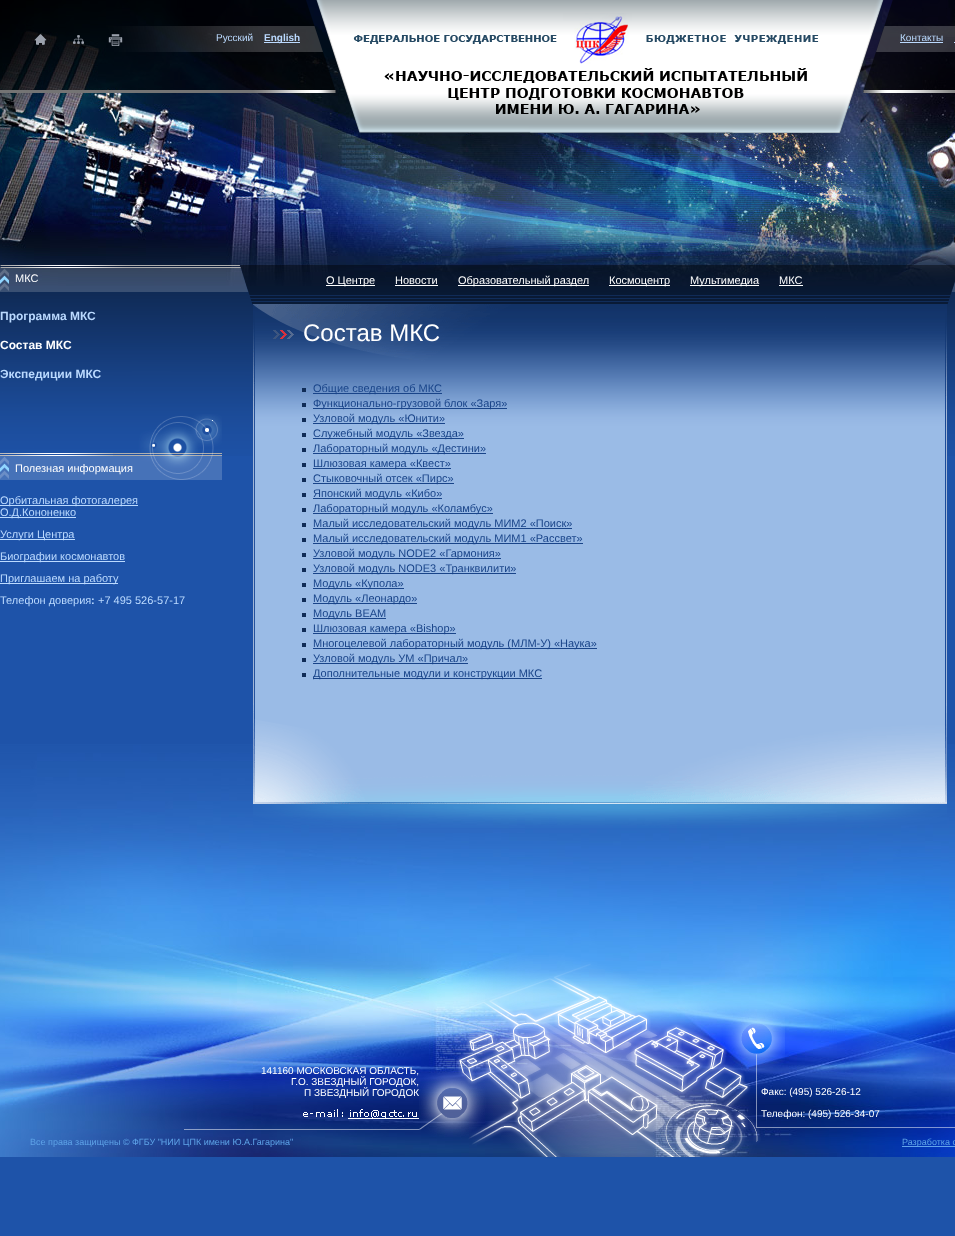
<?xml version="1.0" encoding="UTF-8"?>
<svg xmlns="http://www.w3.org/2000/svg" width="955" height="1236">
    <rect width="100%" height="100%" fill="#1E53A9"/>
    <image x="0" y="0" width="955" height="286" href="img_01.png"/>
    <image x="0" y="286" width="955" height="170" href="img_02.png"/>
    <image x="0" y="744" width="955" height="413" href="img_03.png"/>
    <image x="0" y="0" width="955" height="133" href="img_04.png"/>
    <image x="34" y="34" width="13" height="11" href="img_05.png"/>
    <image x="73" y="35" width="11" height="9" href="img_06.png"/>
    <image x="108" y="34" width="15" height="12" href="img_07.png"/>
    <text x="216" y="41" font-family="Liberation Sans" font-size="10" fill="#BBDAFF">Русский</text>
    <rect x="264" y="42" width="36" height="1" fill="#BBDAFF"/>
    <text x="264" y="41" font-family="Liberation Sans" font-size="10" font-weight="700" fill="#BBDAFF">English</text>
    <text x="900" y="41" font-family="Liberation Sans" font-size="10" fill="#BBDAFF">Контакты</text>
    <rect x="900" y="42" width="43" height="1" fill="#BBDAFF"/>
    <rect x="954" y="42" width="1" height="1" fill="#BBDAFF"/>
    <image x="0" y="265" width="955" height="39" href="img_08.png"/>
    <text x="15" y="282" font-family="Liberation Sans" font-size="11" fill="#FFFFFF">МКС</text>
    <text x="0" y="320" font-family="Liberation Sans" font-size="12" font-weight="700" fill="#BBDAFF">Программа МКС</text>
    <text x="0" y="349" font-family="Liberation Sans" font-size="12" font-weight="700" fill="#FFFFFF">Состав МКС</text>
    <text x="0" y="378" font-family="Liberation Sans" font-size="12" font-weight="700" fill="#BBDAFF">Экспедиции МКС</text>
    <image x="0" y="414" width="222" height="66" href="img_09.png"/>
    <text x="15" y="472" font-family="Liberation Sans" font-size="11" fill="#FFFFFF">Полезная информация</text>
    <rect x="0" y="505" width="138" height="1" fill="#BBDAFF"/>
    <text x="0" y="504" font-family="Liberation Sans" font-size="11" fill="#BBDAFF">Орбитальная фотогалерея</text>
    <rect x="0" y="517" width="76" height="1" fill="#BBDAFF"/>
    <text x="0" y="516" font-family="Liberation Sans" font-size="11" fill="#BBDAFF">О.Д.Кононенко</text>
    <rect x="0" y="539" width="75" height="1" fill="#BBDAFF"/>
    <text x="0" y="538" font-family="Liberation Sans" font-size="11" fill="#BBDAFF">Услуги Центра</text>
    <rect x="0" y="561" width="125" height="1" fill="#BBDAFF"/>
    <text x="0" y="560" font-family="Liberation Sans" font-size="11" fill="#BBDAFF">Биографии космонавтов</text>
    <rect x="0" y="583" width="118" height="1" fill="#BBDAFF"/>
    <text x="0" y="582" font-family="Liberation Sans" font-size="11" fill="#BBDAFF">Приглашаем на работу</text>
    <text x="0" y="604" font-family="Liberation Sans" font-size="11" fill="#BBDAFF">Телефон доверия</text>
    <text x="91" y="604" font-family="Liberation Sans" font-size="11" font-weight="700" fill="#BBDAFF">:</text>
    <text x="98" y="604" font-family="Liberation Sans" font-size="11" fill="#BBDAFF">+7 495 526-57-17</text>
    <rect x="326" y="285" width="49" height="1" fill="#FFFFFF"/>
    <text x="326" y="284" font-family="Liberation Sans" font-size="11" fill="#FFFFFF">О Центре</text>
    <text x="395" y="284" font-family="Liberation Sans" font-size="11" fill="#FFFFFF">Новости</text>
    <rect x="395" y="285" width="43" height="1" fill="#FFFFFF"/>
    <rect x="458" y="285" width="131" height="1" fill="#FFFFFF"/>
    <text x="458" y="284" font-family="Liberation Sans" font-size="11" fill="#FFFFFF">Образовательный раздел</text>
    <rect x="609" y="285" width="61" height="1" fill="#FFFFFF"/>
    <text x="609" y="284" font-family="Liberation Sans" font-size="11" fill="#FFFFFF">Космоцентр</text>
    <rect x="690" y="285" width="69" height="1" fill="#FFFFFF"/>
    <text x="690" y="284" font-family="Liberation Sans" font-size="11" fill="#FFFFFF">Мультимедиа</text>
    <text x="779" y="284" font-family="Liberation Sans" font-size="11" fill="#FFFFFF">МКС</text>
    <rect x="779" y="285" width="24" height="1" fill="#FFFFFF"/>
    <image x="253" y="427" width="694" height="276" href="img_10.png"/>
    <image x="253" y="304" width="694" height="123" href="img_11.png"/>
    <image x="253" y="703" width="694" height="101" href="img_12.png"/>
    <image x="273" y="330" width="21" height="9" href="img_13.png"/>
    <text x="303" y="341" font-family="Liberation Sans" font-size="24" fill="#FFFFFF">Состав МКС</text>
    <rect x="302" y="388" width="4" height="4" fill="#102C57"/>
    <rect x="313" y="393" width="129" height="1" fill="#194489"/>
    <text x="313" y="392" font-family="Liberation Sans" font-size="11" fill="#194489">Общие сведения об МКС</text>
    <rect x="302" y="403" width="4" height="4" fill="#102C57"/>
    <rect x="313" y="408" width="194" height="1" fill="#194489"/>
    <text x="313" y="407" font-family="Liberation Sans" font-size="11" fill="#194489">Функционально-грузовой блок «Заря»</text>
    <rect x="302" y="418" width="4" height="4" fill="#102C57"/>
    <rect x="313" y="423" width="132" height="1" fill="#194489"/>
    <text x="313" y="422" font-family="Liberation Sans" font-size="11" fill="#194489">Узловой модуль «Юнити»</text>
    <rect x="302" y="433" width="4" height="4" fill="#102C57"/>
    <rect x="313" y="438" width="151" height="1" fill="#194489"/>
    <text x="313" y="437" font-family="Liberation Sans" font-size="11" fill="#194489">Служебный модуль «Звезда»</text>
    <rect x="302" y="448" width="4" height="4" fill="#102C57"/>
    <rect x="313" y="453" width="173" height="1" fill="#194489"/>
    <text x="313" y="452" font-family="Liberation Sans" font-size="11" fill="#194489">Лабораторный модуль «Дестини»</text>
    <rect x="302" y="463" width="4" height="4" fill="#102C57"/>
    <rect x="313" y="468" width="138" height="1" fill="#194489"/>
    <text x="313" y="467" font-family="Liberation Sans" font-size="11" fill="#194489">Шлюзовая камера «Квест»</text>
    <rect x="302" y="478" width="4" height="4" fill="#102C57"/>
    <rect x="313" y="483" width="141" height="1" fill="#194489"/>
    <text x="313" y="482" font-family="Liberation Sans" font-size="11" fill="#194489">Стыковочный отсек «Пирс»</text>
    <rect x="302" y="493" width="4" height="4" fill="#102C57"/>
    <rect x="313" y="498" width="129" height="1" fill="#194489"/>
    <text x="313" y="497" font-family="Liberation Sans" font-size="11" fill="#194489">Японский модуль «Кибо»</text>
    <rect x="302" y="508" width="4" height="4" fill="#102C57"/>
    <rect x="313" y="513" width="180" height="1" fill="#194489"/>
    <text x="313" y="512" font-family="Liberation Sans" font-size="11" fill="#194489">Лабораторный модуль «Коламбус»</text>
    <rect x="302" y="523" width="4" height="4" fill="#102C57"/>
    <rect x="313" y="528" width="259" height="1" fill="#194489"/>
    <text x="313" y="527" font-family="Liberation Sans" font-size="11" fill="#194489">Малый исследовательский модуль МИМ2 «Поиск»</text>
    <rect x="302" y="538" width="4" height="4" fill="#102C57"/>
    <rect x="313" y="543" width="270" height="1" fill="#194489"/>
    <text x="313" y="542" font-family="Liberation Sans" font-size="11" fill="#194489">Малый исследовательский модуль МИМ1 «Рассвет»</text>
    <rect x="302" y="553" width="4" height="4" fill="#102C57"/>
    <rect x="313" y="558" width="188" height="1" fill="#194489"/>
    <text x="313" y="557" font-family="Liberation Sans" font-size="11" fill="#194489">Узловой модуль NODE2 «Гармония»</text>
    <rect x="302" y="568" width="4" height="4" fill="#102C57"/>
    <rect x="313" y="573" width="203" height="1" fill="#194489"/>
    <text x="313" y="572" font-family="Liberation Sans" font-size="11" fill="#194489">Узловой модуль NODE3 «Транквилити»</text>
    <rect x="302" y="583" width="4" height="4" fill="#102C57"/>
    <rect x="313" y="588" width="91" height="1" fill="#194489"/>
    <text x="313" y="587" font-family="Liberation Sans" font-size="11" fill="#194489">Модуль «Купола»</text>
    <rect x="302" y="598" width="4" height="4" fill="#102C57"/>
    <rect x="313" y="603" width="104" height="1" fill="#194489"/>
    <text x="313" y="602" font-family="Liberation Sans" font-size="11" fill="#194489">Модуль «Леонардо»</text>
    <rect x="302" y="613" width="4" height="4" fill="#102C57"/>
    <rect x="313" y="618" width="73" height="1" fill="#194489"/>
    <text x="313" y="617" font-family="Liberation Sans" font-size="11" fill="#194489">Модуль BEAM</text>
    <rect x="302" y="628" width="4" height="4" fill="#102C57"/>
    <rect x="313" y="633" width="143" height="1" fill="#194489"/>
    <text x="313" y="632" font-family="Liberation Sans" font-size="11" fill="#194489">Шлюзовая камера «Bishop»</text>
    <rect x="302" y="643" width="4" height="4" fill="#102C57"/>
    <rect x="313" y="648" width="284" height="1" fill="#194489"/>
    <text x="313" y="647" font-family="Liberation Sans" font-size="11" fill="#194489">Многоцелевой лабораторный модуль (МЛМ-У) «Наука»</text>
    <rect x="302" y="658" width="4" height="4" fill="#102C57"/>
    <rect x="313" y="663" width="155" height="1" fill="#194489"/>
    <text x="313" y="662" font-family="Liberation Sans" font-size="11" fill="#194489">Узловой модуль УМ «Причал»</text>
    <rect x="302" y="673" width="4" height="4" fill="#102C57"/>
    <rect x="313" y="678" width="229" height="1" fill="#194489"/>
    <text x="313" y="677" font-family="Liberation Sans" font-size="11" fill="#194489">Дополнительные модули и конструкции МКС</text>
    <image x="253" y="804" width="694" height="24" href="img_14.png"/>
    <text x="261" y="1074" font-family="Liberation Sans" font-size="10" fill="#FFFFFF">141160 МОСКОВСКАЯ ОБЛАСТЬ,</text>
    <text x="291" y="1085" font-family="Liberation Sans" font-size="10" fill="#FFFFFF">Г.О. ЗВЕЗДНЫЙ ГОРОДОК,</text>
    <text x="304" y="1096" font-family="Liberation Sans" font-size="10" fill="#FFFFFF">П ЗВЕЗДНЫЙ ГОРОДОК</text>
    <image x="303" y="1109" width="116" height="10" href="img_15.png"/>
    <rect x="184" y="1129" width="235" height="1" fill="#FFFFFF" fill-opacity="0.5"/>
    <image x="419" y="955" width="366" height="202" href="img_16.png"/>
    <text x="761" y="1095" font-family="Liberation Sans" font-size="10" fill="#FFFFFF">Факс: (495) 526-26-12</text>
    <text x="761" y="1117" font-family="Liberation Sans" font-size="10" fill="#FFFFFF">Телефон: (495) 526-34-07</text>
    <rect x="756" y="1127" width="199" height="1" fill="#FFFFFF" fill-opacity="0.5"/>
    <text x="30" y="1145" font-family="Liberation Sans" font-size="9" fill="#5EA3E7">Все права защищены © ФГБУ "НИИ ЦПК имени Ю.А.Гагарина"</text>
    <rect x="902" y="1146" width="53" height="1" fill="#63A3EB"/>
    <text x="902" y="1145" font-family="Liberation Sans" font-size="9" fill="#5EA3E7">Разработка с</text>
</svg>
